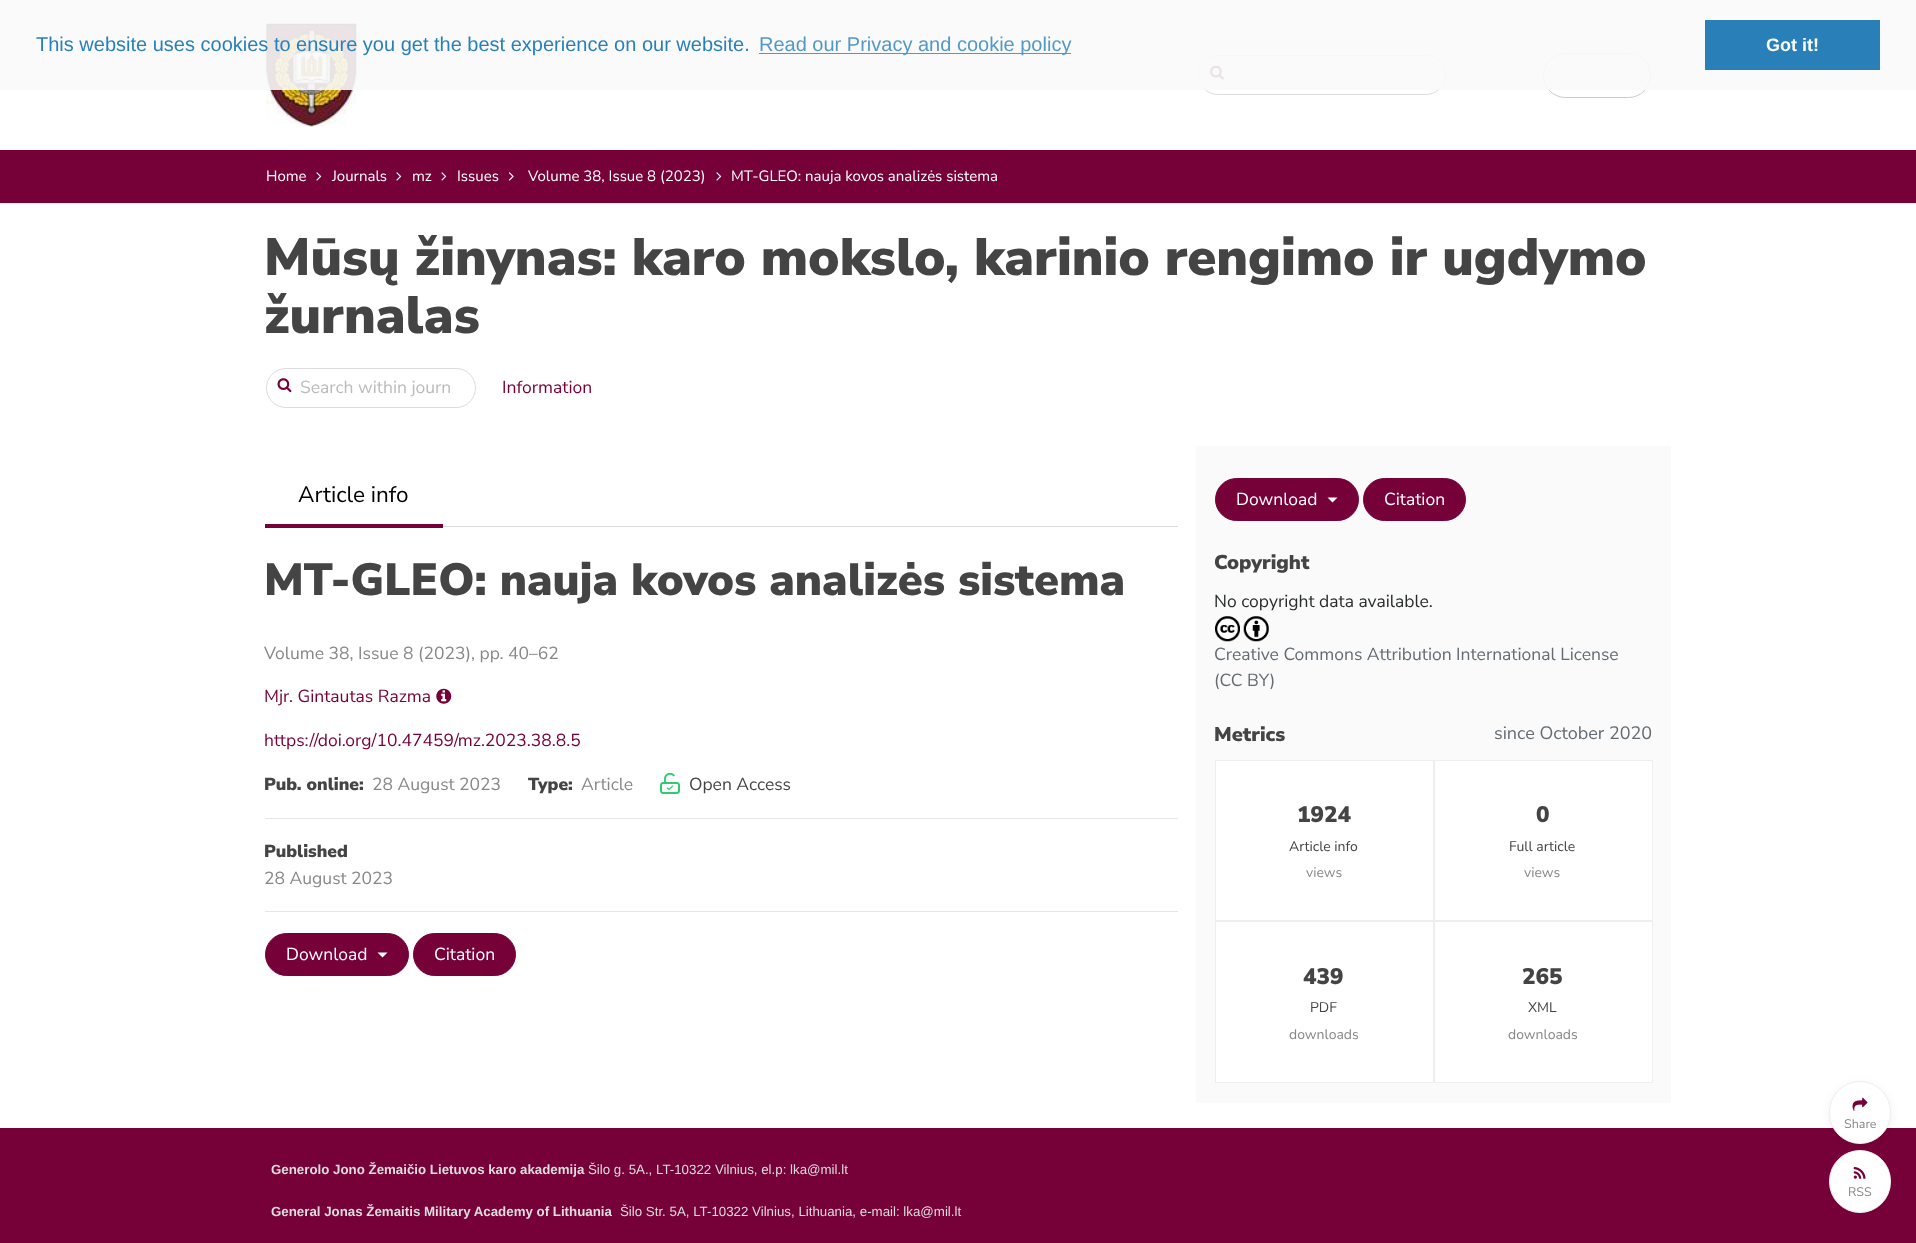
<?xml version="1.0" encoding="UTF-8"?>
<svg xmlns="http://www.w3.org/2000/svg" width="1916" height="1243">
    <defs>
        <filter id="blur1" x="-50%" y="-200%" width="200%" height="500%"><feGaussianBlur stdDeviation="5"/></filter>
    </defs>
    <rect width="100%" height="100%" fill="#FFFFFF"/>
    <image x="266" y="23" width="91" height="104" href="img_01.png"/>
    <rect x="1198.5" y="55.5" width="247" height="39" rx="19.5" fill="none" stroke="#DDDDDD"/>
    <image x="1210" y="65" width="14" height="15" href="img_02.png"/>
    <rect x="1543.5" y="53.5" width="107" height="44" rx="22" fill="none" stroke="#CCCCCC"/>
    <rect x="0" y="0" width="1916" height="90" fill="#FAFAFA" fill-opacity="0.9"/>
    <text x="36" y="51" font-family="Liberation Sans" font-size="20" fill="#2980B9">This website uses cookies to ensure you get the best experience on our website.</text>
    <rect x="759" y="53" width="312" height="1" fill="#5399C6"/>
    <text x="759" y="51" font-family="Liberation Sans" font-size="20" fill="#5399C6">Read our Privacy and cookie policy</text>
    <rect x="1705" y="20" width="175" height="50" fill="#2980B9"/>
    <text x="1766" y="51" font-family="Liberation Sans" font-size="18" font-weight="700" fill="#FFFFFF">Got it!</text>
    <rect x="0" y="150" width="1916" height="53" fill="#760038"/>
    <rect x="0" y="203" width="1916" height="1" fill="#EEEEEE"/>
    <text x="266" y="181" font-family="Nunito Sans" font-size="15" fill="#FFFFFF">Home</text>
    <image x="316" y="172" width="6" height="9" href="img_03.png"/>
    <text x="332" y="181" font-family="Nunito Sans" font-size="15" fill="#FFFFFF">Journals</text>
    <image x="396" y="172" width="6" height="9" href="img_03.png"/>
    <text x="412" y="181" font-family="Nunito Sans" font-size="15" fill="#FFFFFF">mz</text>
    <image x="441" y="172" width="6" height="9" href="img_03.png"/>
    <text x="457" y="181" font-family="Nunito Sans" font-size="15" fill="#FFFFFF">Issues</text>
    <image x="508" y="172" width="6" height="9" href="img_04.png"/>
    <text x="528" y="181" font-family="Nunito Sans" font-size="15" fill="#FFFFFF">Volume 38, Issue 8 (2023)</text>
    <image x="716" y="172" width="6" height="9" href="img_03.png"/>
    <text x="731" y="181" font-family="Nunito Sans" font-size="15" fill="#FFFFFF">MT-GLEO: nauja kovos analizės sistema</text>
    <text font-family="Nunito Sans" font-size="52.5" font-weight="900" fill="#444444">
        <tspan x="264" y="275">Mūsų žinynas: karo mokslo, karinio rengimo ir ugdymo</tspan>
        <tspan x="264" y="333">žurnalas</tspan>
    </text>
    <rect x="266.5" y="368.5" width="209" height="39" rx="19.5" fill="none" stroke="#DDDDDD"/>
    <image x="277" y="378" width="15" height="15" href="img_05.png"/>
    <text x="300" y="393" font-family="Nunito Sans" font-size="17.5" fill="#BBBBBB">Search within journ</text>
    <text x="502" y="393" font-family="Nunito Sans" font-size="17.5" fill="#760038">Information</text>
    <rect x="443" y="526" width="735" height="1" fill="#DDDDDD"/>
    <rect x="265" y="524" width="178" height="4" fill="#760038"/>
    <text x="298" y="502" font-family="Nunito Sans" font-size="22.5" fill="#000000">Article info</text>
    <text x="264" y="595" font-family="Nunito Sans" font-size="45" font-weight="900" fill="#444444">MT-GLEO: nauja kovos analizės sistema</text>
    <text x="264" y="659" font-family="Nunito Sans" font-size="17.5" fill="#888888">Volume 38, Issue 8 (2023), pp. 40–62</text>
    <text x="264" y="702" font-family="Nunito Sans" font-size="17.5" fill="#760038">Mjr. Gintautas Razma</text>
    <image x="436" y="688" width="16" height="16" href="img_06.png"/>
    <text x="264" y="746" font-family="Nunito Sans" font-size="17.5" fill="#760038">https://doi.org/10.47459/mz.2023.38.8.5</text>
    <text x="264" y="790" font-family="Nunito Sans" font-size="17.5" font-weight="900" fill="#444444">Pub. online:</text>
    <text x="372" y="790" font-family="Nunito Sans" font-size="17.5" fill="#888888">28 August 2023</text>
    <text x="528" y="790" font-family="Nunito Sans" font-size="17.5" font-weight="900" fill="#444444">Type:</text>
    <text x="581" y="790" font-family="Nunito Sans" font-size="17.5" fill="#888888">Article</text>
    <image x="660" y="773" width="20" height="21" href="img_07.png"/>
    <text x="689" y="790" font-family="Nunito Sans" font-size="17.5" fill="#444444">Open Access</text>
    <rect x="265" y="818" width="913" height="1" fill="#E6E6E6"/>
    <text x="264" y="857" font-family="Nunito Sans" font-size="17.5" font-weight="900" fill="#444444">Published</text>
    <text x="264" y="884" font-family="Nunito Sans" font-size="17.5" fill="#888888">28 August 2023</text>
    <rect x="265" y="911" width="913" height="1" fill="#E6E6E6"/>
    <rect x="265.5" y="933.5" width="143" height="42" rx="21" fill="#760038" stroke="#760038"/>
    <text x="286" y="960" font-family="Nunito Sans" font-size="17.5" fill="#FFFFFF">Download</text>
    <path d="M 377.5 952.5 H 387.5 L 382.5 957.5 Z" fill="#FFFFFF"/>
    <rect x="413.5" y="933.5" width="102" height="42" rx="21" fill="#760038" stroke="#760038"/>
    <text x="434" y="960" font-family="Nunito Sans" font-size="17.5" fill="#FFFFFF">Citation</text>
    <rect x="1196" y="446" width="475" height="657" fill="#FAFAFA"/>
    <rect x="1215.5" y="478.5" width="143" height="42" rx="21" fill="#760038" stroke="#760038"/>
    <text x="1236" y="505" font-family="Nunito Sans" font-size="17.5" fill="#FFFFFF">Download</text>
    <path d="M 1327.5 497.5 H 1337.5 L 1332.5 502.5 Z" fill="#FFFFFF"/>
    <rect x="1363.5" y="478.5" width="102" height="42" rx="21" fill="#760038" stroke="#760038"/>
    <text x="1384" y="505" font-family="Nunito Sans" font-size="17.5" fill="#FFFFFF">Citation</text>
    <text x="1214" y="569" font-family="Nunito Sans" font-size="20" font-weight="900" fill="#444444">Copyright</text>
    <text x="1214" y="607" font-family="Nunito Sans" font-size="17.5" fill="#292B2C">No copyright data available.</text>
    <image x="1215" y="616" width="25" height="26" href="img_08.png"/>
    <image x="1243" y="616" width="26" height="26" href="img_09.png"/>
    <text font-family="Nunito Sans" font-size="17.5" fill="#636C72">
        <tspan x="1214" y="660">Creative Commons Attribution International License</tspan>
        <tspan x="1214" y="686">(CC BY)</tspan>
    </text>
    <text x="1214" y="741" font-family="Nunito Sans" font-size="20" font-weight="900" fill="#444444">Metrics</text>
    <text x="1494" y="739" font-family="Nunito Sans" font-size="18" fill="#636C72">since October 2020</text>
    <rect x="1215.5" y="760.5" width="218" height="160" fill="#FFFFFF" stroke="#EEEEEE"/>
    <text x="1297" y="822" font-family="Nunito Sans" font-size="22.5" font-weight="900" fill="#444444">1924</text>
    <text x="1289" y="851" font-family="Nunito Sans" font-size="14" fill="#444444">Article info</text>
    <text x="1306" y="877" font-family="Nunito Sans" font-size="14" fill="#888888">views</text>
    <rect x="1434.5" y="760.5" width="218" height="160" fill="#FFFFFF" stroke="#EEEEEE"/>
    <text x="1536" y="822" font-family="Nunito Sans" font-size="22.5" font-weight="900" fill="#444444">0</text>
    <text x="1509" y="851" font-family="Nunito Sans" font-size="14" fill="#444444">Full article</text>
    <text x="1524" y="877" font-family="Nunito Sans" font-size="14" fill="#888888">views</text>
    <rect x="1215.5" y="921.5" width="218" height="161" fill="#FFFFFF" stroke="#EEEEEE"/>
    <text x="1303" y="984" font-family="Nunito Sans" font-size="22.5" font-weight="900" fill="#444444">439</text>
    <text x="1310" y="1012" font-family="Nunito Sans" font-size="14" fill="#444444">PDF</text>
    <text x="1289" y="1039" font-family="Nunito Sans" font-size="14" fill="#888888">downloads</text>
    <rect x="1434.5" y="921.5" width="218" height="161" fill="#FFFFFF" stroke="#EEEEEE"/>
    <text x="1522" y="984" font-family="Nunito Sans" font-size="22.5" font-weight="900" fill="#444444">265</text>
    <text x="1528" y="1012" font-family="Nunito Sans" font-size="14" fill="#444444">XML</text>
    <text x="1508" y="1039" font-family="Nunito Sans" font-size="14" fill="#888888">downloads</text>
    <rect x="0" y="1128" width="1916" height="115" fill="#760038"/>
    <rect x="1829" y="1084" width="62" height="62" rx="31" fill="#000000" fill-opacity="0.06" filter="url(#blur1)"/>
    <rect x="1829.5" y="1081.5" width="61" height="62" rx="30.5" fill="#FFFFFF" stroke="#EEEEEE"/>
    <image x="1852" y="1097" width="16" height="14" href="img_10.png"/>
    <text x="1844" y="1128" font-family="Nunito Sans" font-size="12.5" fill="#888888">Share</text>
    <rect x="1829.5" y="1150.5" width="61" height="62" rx="30.5" fill="#FFFFFF" stroke="#EEEEEE"/>
    <image x="1853" y="1167" width="13" height="12" href="img_11.png"/>
    <text x="1848" y="1196" font-family="Nunito Sans" font-size="12.5" fill="#888888">RSS</text>
    <text x="271" y="1174" font-family="Liberation Sans" font-size="13.3" font-weight="700" fill="#DDDDDD">Generolo Jono Žemaičio Lietuvos karo akademija</text>
    <text x="588" y="1174" font-family="Liberation Sans" font-size="13.3" fill="#DDDDDD">Šilo g. 5A., LT-10322 Vilnius, el.p: lka@mil.lt</text>
    <text x="271" y="1216" font-family="Liberation Sans" font-size="13.3" font-weight="700" fill="#DDDDDD">General Jonas Žemaitis Military Academy of Lithuania</text>
    <text x="620" y="1216" font-family="Liberation Sans" font-size="13.3" fill="#DDDDDD">Šilo Str. 5A, LT-10322 Vilnius, Lithuania, e-mail: lka@mil.lt</text>
</svg>
